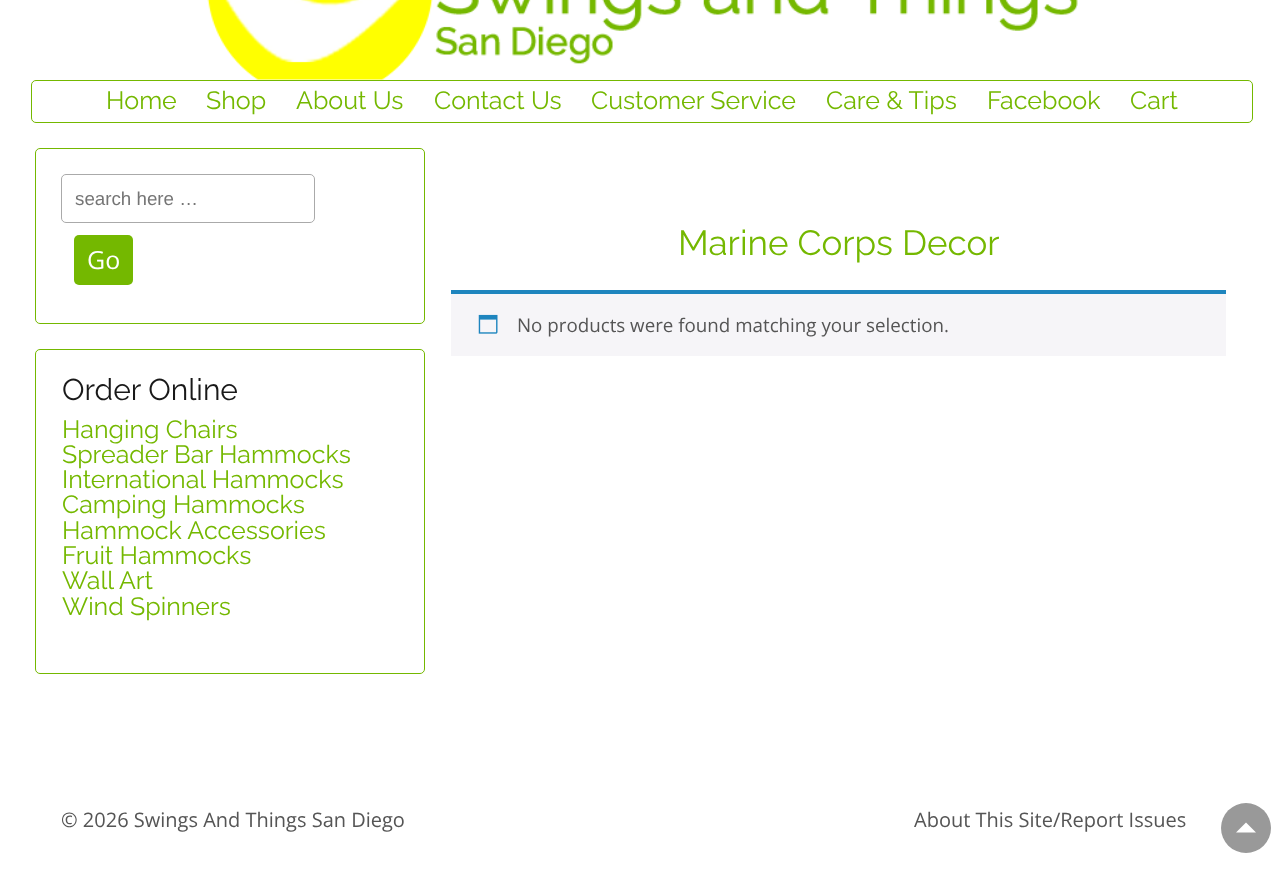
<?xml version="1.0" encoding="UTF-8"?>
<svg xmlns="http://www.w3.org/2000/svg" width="1283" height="889">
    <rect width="100%" height="100%" fill="#FFFFFF"/>
    <image x="207" y="0" width="871" height="80" href="img_01.png"/>
    <rect x="31.5" y="80.5" width="1221" height="42" rx="4.5" fill="none" stroke="#74B800"/>
    <text x="106" y="109" font-family="Raleway" font-size="25" font-weight="100" fill="#74B800">Home</text>
    <text x="206" y="109" font-family="Raleway" font-size="25" font-weight="100" fill="#74B800">Shop</text>
    <text x="296" y="109" font-family="Raleway" font-size="25" font-weight="100" fill="#74B800">About Us</text>
    <text x="434" y="109" font-family="Raleway" font-size="25" font-weight="100" fill="#74B800">Contact Us</text>
    <text x="591" y="109" font-family="Raleway" font-size="25" font-weight="100" fill="#74B800">Customer Service</text>
    <text x="826" y="109" font-family="Raleway" font-size="25" font-weight="100" fill="#74B800">Care &amp; Tips</text>
    <text x="987" y="109" font-family="Raleway" font-size="25" font-weight="100" fill="#74B800">Facebook</text>
    <text x="1130" y="109" font-family="Raleway" font-size="25" font-weight="100" fill="#74B800">Cart</text>
    <rect x="35.5" y="148.5" width="389" height="175" rx="4.5" fill="none" stroke="#74B800"/>
    <rect x="61.5" y="174.5" width="253" height="48" rx="4.5" fill="none" stroke="#AAAAAA"/>
    <text x="75" y="205" font-family="Liberation Sans" font-size="18.75" fill="#757575">search here …</text>
    <rect x="74" y="235" width="59" height="50" rx="5" fill="#74B800"/>
    <text x="87" y="269" font-family="Open Sans" font-size="25" fill="#FFFFFF">Go</text>
    <rect x="35.5" y="349.5" width="389" height="324" rx="4.5" fill="none" stroke="#74B800"/>
    <text x="62" y="400" font-family="Raleway" font-size="30" font-weight="100" fill="#191919">Order Online</text>
    <text font-family="Raleway" font-size="25" font-weight="100" fill="#74B800">
        <tspan x="62" y="438">Hanging Chairs</tspan>
        <tspan x="62" y="463">Spreader Bar Hammocks</tspan>
        <tspan x="62" y="488">International Hammocks</tspan>
        <tspan x="62" y="513">Camping Hammocks</tspan>
        <tspan x="62" y="539">Hammock Accessories</tspan>
        <tspan x="62" y="564">Fruit Hammocks</tspan>
        <tspan x="62" y="589">Wall Art</tspan>
        <tspan x="62" y="615">Wind Spinners</tspan>
    </text>
    <text x="678" y="255" font-family="Raleway" font-size="35" font-weight="100" fill="#74B800">Marine Corps Decor</text>
    <rect x="451" y="294" width="775" height="62" fill="#F6F5F8"/>
    <rect x="451" y="290" width="775" height="4" fill="#1E85BE"/>
    <image x="478" y="314" width="20" height="20" href="img_02.png"/>
    <text x="517" y="332" font-family="Open Sans" font-size="18.75" fill="#555555">No products were found matching your selection.</text>
    <text x="61" y="827" font-family="Open Sans" font-size="20" fill="#555555">© 2026 Swings And Things San Diego</text>
    <text x="914" y="827" font-family="Open Sans" font-size="20" fill="#555555">About This Site/Report Issues</text>
    <circle cx="1246" cy="828" r="25" fill="#999999"/>
    <path d="M 1256 832.5 H 1236 L 1246 822.5 Z" fill="#FFFFFF"/>
</svg>
